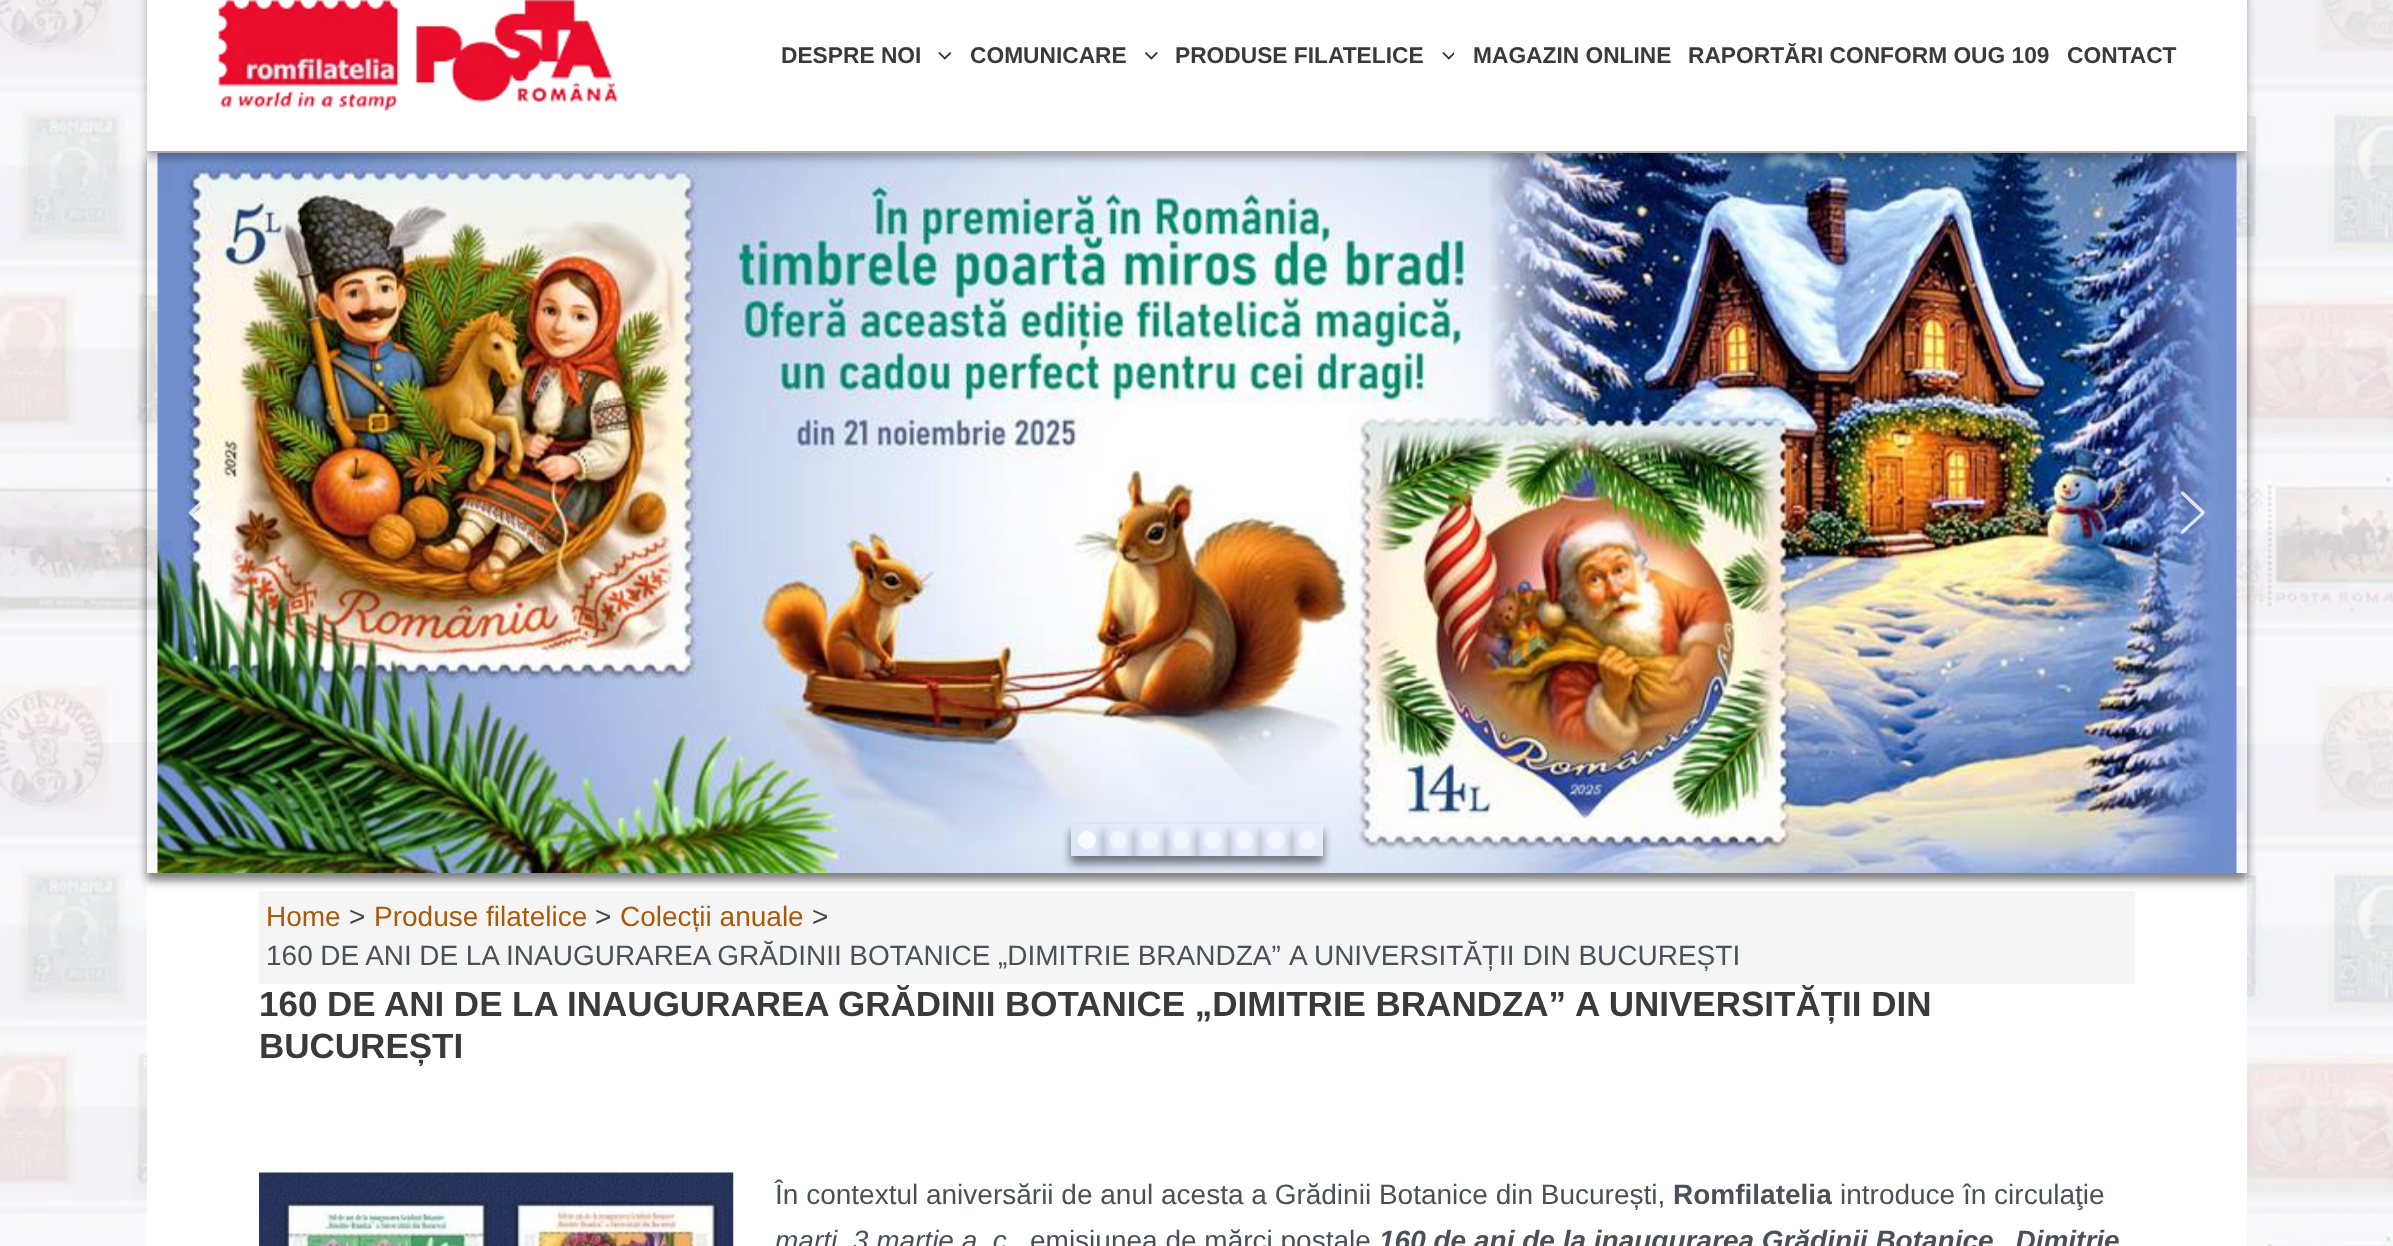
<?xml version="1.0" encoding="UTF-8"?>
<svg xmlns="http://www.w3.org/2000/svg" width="2393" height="1246">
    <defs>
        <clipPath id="clip1"><path d="M 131 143 H 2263 V 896 H 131 Z M 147 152 H 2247 V 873 H 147 Z" clip-rule="evenodd"/></clipPath>
        <filter id="blur1" x="-50%" y="-200%" width="200%" height="500%"><feGaussianBlur stdDeviation="5"/></filter>
        <clipPath id="clip2"><path d="M 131 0 H 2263 V 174 H 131 Z M 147 -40 H 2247 V 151 H 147 Z" clip-rule="evenodd"/></clipPath>
        <clipPath id="clip3"><path d="M 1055 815 H 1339 V 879 H 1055 Z M 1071 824 H 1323 V 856 H 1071 Z" clip-rule="evenodd"/></clipPath>
        <clipPath id="clip4"><path d="M 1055 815 H 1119 V 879 H 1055 Z M 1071 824 H 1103 V 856 H 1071 Z" clip-rule="evenodd"/></clipPath>
        <clipPath id="clip5"><path d="M 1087 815 H 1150 V 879 H 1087 Z M 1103 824 H 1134 V 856 H 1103 Z" clip-rule="evenodd"/></clipPath>
        <clipPath id="clip6"><path d="M 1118 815 H 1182 V 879 H 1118 Z M 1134 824 H 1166 V 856 H 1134 Z" clip-rule="evenodd"/></clipPath>
        <clipPath id="clip7"><path d="M 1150 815 H 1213 V 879 H 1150 Z M 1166 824 H 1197 V 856 H 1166 Z" clip-rule="evenodd"/></clipPath>
        <clipPath id="clip8"><path d="M 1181 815 H 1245 V 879 H 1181 Z M 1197 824 H 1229 V 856 H 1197 Z" clip-rule="evenodd"/></clipPath>
        <clipPath id="clip9"><path d="M 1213 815 H 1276 V 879 H 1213 Z M 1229 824 H 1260 V 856 H 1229 Z" clip-rule="evenodd"/></clipPath>
        <clipPath id="clip10"><path d="M 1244 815 H 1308 V 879 H 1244 Z M 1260 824 H 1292 V 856 H 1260 Z" clip-rule="evenodd"/></clipPath>
        <clipPath id="clip11"><path d="M 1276 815 H 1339 V 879 H 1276 Z M 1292 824 H 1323 V 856 H 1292 Z" clip-rule="evenodd"/></clipPath>
    </defs>
    <rect width="100%" height="100%" fill="#FFFFFF"/>
    <image x="0" y="0" width="2393" height="1246" href="img_01.png"/>
    <rect x="147" y="873" width="2100" height="373" fill="#FFFFFF"/>
    <rect x="259" y="891" width="1876" height="93" fill="#F5F5F5"/>
    <g clip-path="url(#clip1)">
        <rect x="147" y="159" width="2100" height="721" fill="#000000" fill-opacity="0.3" filter="url(#blur1)"/>
        <rect x="147" y="159" width="2100" height="721" fill="#000000" fill-opacity="0.3" filter="url(#blur1)"/>
    </g>
    <rect x="147" y="0" width="2100" height="151" fill="#FFFFFF"/>
    <rect x="147" y="151" width="2100" height="2" fill="#EAEAEA"/>
    <image x="157" y="153" width="2080" height="720" href="img_06.png"/>
    <g clip-path="url(#clip2)">
        <rect x="147" y="-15" width="2100" height="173" fill="#000000" fill-opacity="0.3" filter="url(#blur1)"/>
    </g>
    <image x="217" y="0" width="402" height="111" href="img_02.png"/>
    <text x="781" y="63" font-family="Liberation Sans" font-size="22.75" font-weight="700" fill="#3A3A3A">DESPRE NOI</text>
    <image x="938" y="52" width="14" height="8" href="img_03.png"/>
    <text x="970" y="63" font-family="Liberation Sans" font-size="22.75" font-weight="700" fill="#3A3A3A">COMUNICARE</text>
    <image x="1145" y="52" width="13" height="8" href="img_04.png"/>
    <text x="1175" y="63" font-family="Liberation Sans" font-size="22.75" font-weight="700" fill="#3A3A3A">PRODUSE FILATELICE</text>
    <image x="1442" y="52" width="12" height="8" href="img_05.png"/>
    <text x="1473" y="63" font-family="Liberation Sans" font-size="22.75" font-weight="700" fill="#3A3A3A">MAGAZIN ONLINE</text>
    <text x="1688" y="63" font-family="Liberation Sans" font-size="22.75" font-weight="700" fill="#3A3A3A">RAPORTĂRI CONFORM OUG 109</text>
    <text x="2067" y="63" font-family="Liberation Sans" font-size="22.75" font-weight="700" fill="#3A3A3A">CONTACT</text>
    <image x="189" y="492" width="25" height="42" href="img_07.png"/>
    <path d="M 2184 492 C 2182 491 2180 492 2181 494 L 2201 513 L 2181 531 V 533 C 2182 536 2187 530 2187 530 L 2201 517 C 2206 512 2206 513 2201 508 Z" fill="#FFFFFF" fill-opacity="0.8" fill-rule="evenodd"/>
    <g clip-path="url(#clip3)">
        <rect x="1071" y="831" width="252" height="32" fill="#000000" fill-opacity="0.3" filter="url(#blur1)"/>
    </g>
    <g clip-path="url(#clip4)">
        <rect x="1071" y="831" width="32" height="32" fill="#000000" fill-opacity="0.3" filter="url(#blur1)"/>
    </g>
    <circle cx="1087" cy="840" r="9" fill="#FFFFFF" fill-opacity="0.8"/>
    <g clip-path="url(#clip5)">
        <rect x="1103" y="831" width="31" height="32" fill="#000000" fill-opacity="0.3" filter="url(#blur1)"/>
    </g>
    <rect x="1110" y="831" width="17" height="18" rx="8.5" fill="#FFFFFF" fill-opacity="0.5"/>
    <g clip-path="url(#clip6)">
        <rect x="1134" y="831" width="32" height="32" fill="#000000" fill-opacity="0.3" filter="url(#blur1)"/>
    </g>
    <circle cx="1150" cy="840" r="9" fill="#FFFFFF" fill-opacity="0.5"/>
    <g clip-path="url(#clip7)">
        <rect x="1166" y="831" width="31" height="32" fill="#000000" fill-opacity="0.3" filter="url(#blur1)"/>
    </g>
    <rect x="1173" y="831" width="17" height="18" rx="8.5" fill="#FFFFFF" fill-opacity="0.5"/>
    <g clip-path="url(#clip8)">
        <rect x="1197" y="831" width="32" height="32" fill="#000000" fill-opacity="0.3" filter="url(#blur1)"/>
    </g>
    <circle cx="1213" cy="840" r="9" fill="#FFFFFF" fill-opacity="0.5"/>
    <g clip-path="url(#clip9)">
        <rect x="1229" y="831" width="31" height="32" fill="#000000" fill-opacity="0.3" filter="url(#blur1)"/>
    </g>
    <rect x="1236" y="831" width="17" height="18" rx="8.5" fill="#FFFFFF" fill-opacity="0.5"/>
    <g clip-path="url(#clip10)">
        <rect x="1260" y="831" width="32" height="32" fill="#000000" fill-opacity="0.3" filter="url(#blur1)"/>
    </g>
    <circle cx="1276" cy="840" r="9" fill="#FFFFFF" fill-opacity="0.5"/>
    <g clip-path="url(#clip11)">
        <rect x="1292" y="831" width="31" height="32" fill="#000000" fill-opacity="0.3" filter="url(#blur1)"/>
    </g>
    <rect x="1299" y="831" width="17" height="18" rx="8.5" fill="#FFFFFF" fill-opacity="0.5"/>
    <text x="266" y="926" font-family="Liberation Sans" font-size="28" fill="#AA5909">Home</text>
    <text x="349" y="926" font-family="Liberation Sans" font-size="28" fill="#434343">&gt;</text>
    <text x="374" y="926" font-family="Liberation Sans" font-size="28" fill="#AA5909">Produse filatelice</text>
    <text x="595" y="926" font-family="Liberation Sans" font-size="28" fill="#434343">&gt;</text>
    <text x="620" y="926" font-family="Liberation Sans" font-size="28" fill="#AA5909">Colecții anuale</text>
    <text x="812" y="926" font-family="Liberation Sans" font-size="28" fill="#434343">&gt;</text>
    <text x="266" y="965" word-spacing="-0.25" font-family="Liberation Sans" font-size="28" fill="#4B4F58">160 DE ANI DE LA INAUGURAREA GRĂDINII BOTANICE „DIMITRIE BRANDZA”</text>
    <text x="1289" y="965" font-family="Liberation Sans" font-size="28" fill="#4B4F58">A UNIVERSITĂȚII DIN BUCUREȘTI</text>
    <text x="259" y="1016" word-spacing="-0.1" font-family="Liberation Sans" font-size="35" font-weight="700" fill="#3A3A3A">160 DE ANI DE LA INAUGURAREA GRĂDINII BOTANICE „DIMITRIE BRANDZA”</text>
    <text x="1575" y="1016" font-family="Liberation Sans" font-size="35" font-weight="700" fill="#3A3A3A">A UNIVERSITĂȚII DIN</text>
    <text x="259" y="1058" font-family="Liberation Sans" font-size="35" font-weight="700" fill="#3A3A3A">BUCUREȘTI</text>
    <image x="259" y="1172" width="475" height="74" href="img_08.png"/>
    <text x="775" y="1204" font-family="Liberation Sans" font-size="28" fill="#4B4F58">În contextul aniversării de anul acesta a Grădinii Botanice din București,</text>
    <text x="1673" y="1204" font-family="Liberation Sans" font-size="28" font-weight="700" fill="#4B4F58">Romfilatelia</text>
    <text x="1840" y="1204" font-family="Liberation Sans" font-size="28" fill="#4B4F58">introduce în circulaţie</text>
    <text x="775" y="1250" font-family="Liberation Sans" font-size="28" font-style="italic" fill="#4B4F58">marți, 3 martie a. c</text>
    <text x="1030" y="1250" font-family="Liberation Sans" font-size="28" fill="#4B4F58">emisiunea de mărci poștale</text>
    <text x="1379" y="1250" font-family="Liberation Sans" font-size="28" font-weight="700" font-style="italic" fill="#4B4F58">160 de ani de la inaugurarea Grădinii Botanice „Dimitrie</text>
</svg>
